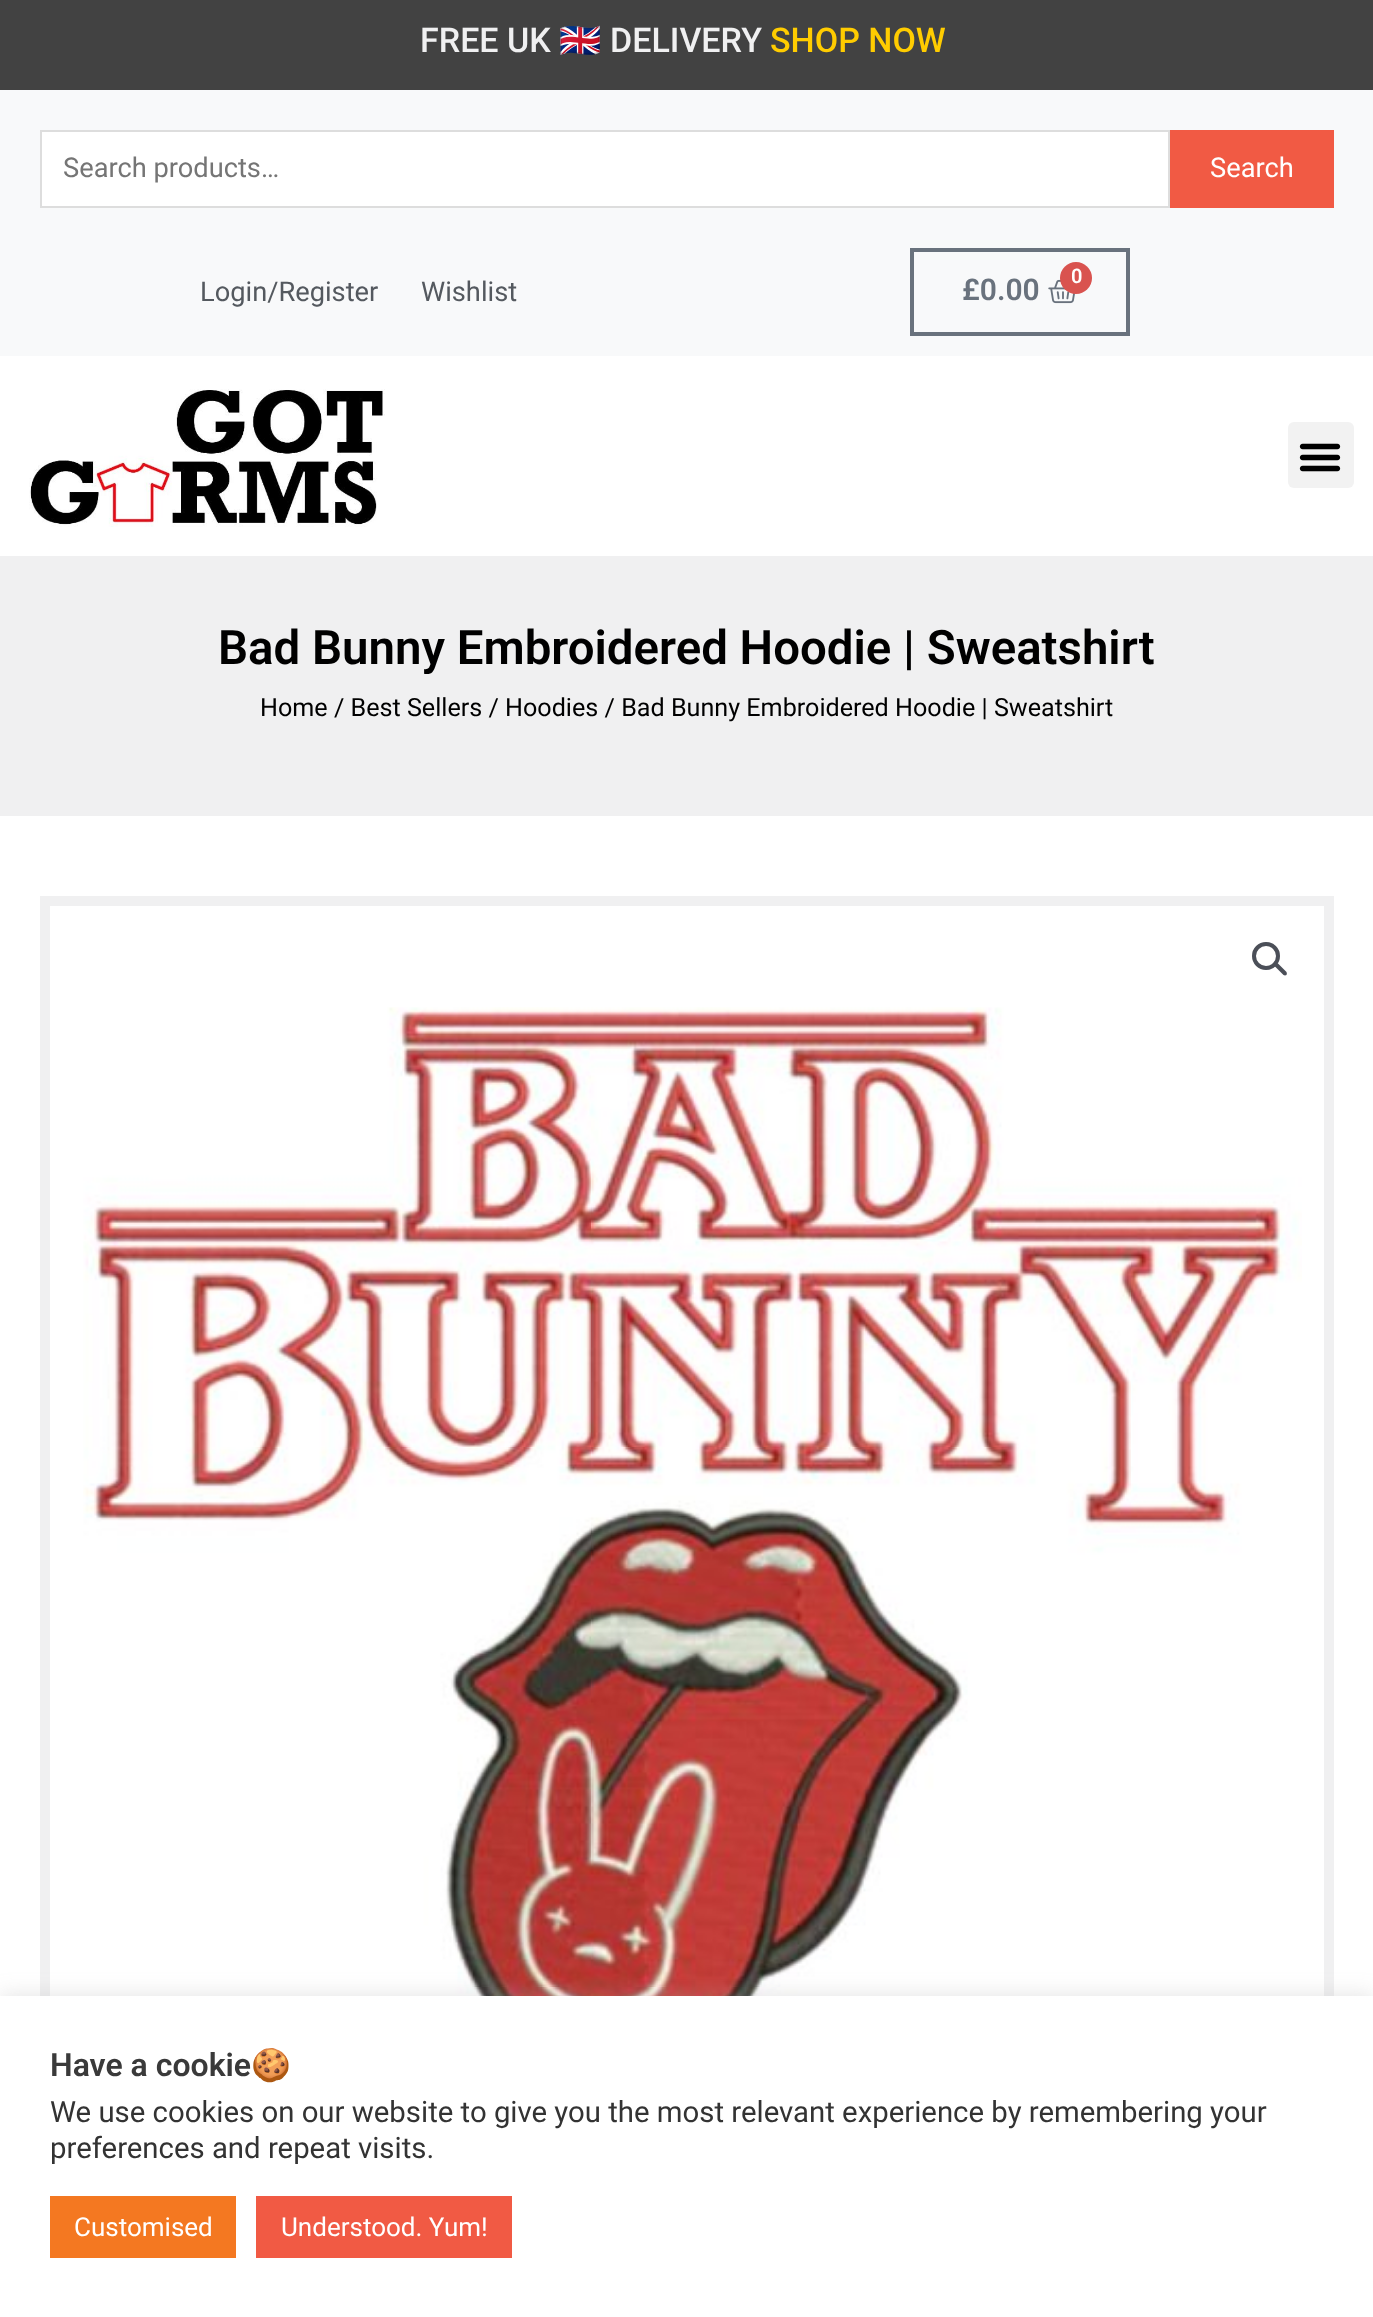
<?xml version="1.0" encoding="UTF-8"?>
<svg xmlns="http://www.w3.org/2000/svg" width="1373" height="2317">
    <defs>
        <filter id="blur1" x="-50%" y="-200%" width="200%" height="500%"><feGaussianBlur stdDeviation="10"/></filter>
    </defs>
    <rect width="100%" height="100%" fill="#FFFFFF"/>
    <rect x="0" y="0" width="1373" height="90" fill="#424242"/>
    <text x="420" y="52" font-family="Roboto" font-size="34" font-weight="500" fill="#F0F0F1">FREE UK</text>
    <text x="559" y="52" font-family="Noto Color Emoji" font-size="34" fill="#F0F0F1">🇬🇧</text>
    <text x="610" y="52" font-family="Roboto" font-size="34" font-weight="500" fill="#F0F0F1">DELIVERY</text>
    <text x="770" y="52" font-family="Roboto" font-size="34" font-weight="500" fill="#FFCC00">SHOP NOW</text>
    <rect x="0" y="90" width="1373" height="266" fill="#F8F9FA"/>
    <rect x="41" y="131" width="1128" height="76" fill="#FFFFFF" stroke="#DDDDDD" stroke-width="2"/>
    <text x="63" y="177" font-family="Roboto" font-size="27.25" fill="#757575">Search products…</text>
    <rect x="1170" y="130" width="164" height="78" fill="#F15A44"/>
    <text x="1210" y="177" font-family="Roboto" font-size="27.25" fill="#FFFFFF">Search</text>
    <text x="200" y="301" font-family="Roboto" font-size="27.25" fill="#54595F">Login/Register</text>
    <text x="421" y="301" font-family="Roboto" font-size="27.25" fill="#54595F">Wishlist</text>
    <rect x="912" y="250" width="216" height="84" fill="none" stroke="#69727D" stroke-width="4"/>
    <image x="1048" y="279" width="28" height="25" href="img_01.png"/>
    <circle cx="1076" cy="278" r="16" fill="#D9534F"/>
    <text x="1071" y="283" font-family="Roboto" font-size="20" font-weight="600" fill="#FFFFFF">0</text>
    <text x="962" y="300" font-family="Roboto" font-size="30" font-weight="600" fill="#69727D">£0.00</text>
    <image x="29" y="389" width="356" height="138" href="img_02.png"/>
    <rect x="1288" y="422" width="66" height="66" rx="6" fill="#F2F2F2"/>
    <image x="1299" y="443" width="42" height="29" href="img_03.png"/>
    <rect x="0" y="556" width="1373" height="260" fill="#F0F0F1"/>
    <text x="218" y="664" font-family="Roboto" font-size="47.4" font-weight="600" fill="#000000">Bad Bunny Embroidered Hoodie | Sweatshirt</text>
    <text x="260" y="716" font-family="Roboto" font-size="25.15" fill="#000000">Home / Best Sellers / Hoodies / Bad Bunny Embroidered Hoodie | Sweatshirt</text>
    <rect x="45" y="901" width="1284" height="1284" fill="none" stroke="#F0F0F1" stroke-width="10"/>
    <image x="83" y="1007" width="1219" height="989" href="img_04.png"/>
    <circle cx="1266" cy="956" r="12" fill="none" stroke="#4B4F58" stroke-width="4"/>
    <path d="M 1275 963.5 C 1276 963 1277 963 1278 963.5 L 1286.5 972 C 1287 973 1287 974 1286.5 975 C 1285.5 975.5 1284.5 975.5 1283.5 975 L 1275 966.5 C 1274 965.5 1274 964.5 1275 963.5 Z" fill="#4B4F58"/>
    <rect x="0" y="1994" width="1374" height="322" fill="#ACABAB" fill-opacity="0.3" filter="url(#blur1)"/>
    <rect x="0" y="1996" width="1373" height="321" fill="#FFFFFF"/>
    <text x="50" y="2076" font-family="Roboto" font-size="32" font-weight="600" fill="#3A3A3A">Have a cookie</text>
    <text x="251" y="2076" font-family="Noto Color Emoji" font-size="32" font-weight="700" fill="#3A3A3A">🍪</text>
    <text font-family="Roboto" font-size="29.35" fill="#333333">
        <tspan x="50" y="2122">We use cookies on our website to give you the most relevant experience by remembering your</tspan>
        <tspan x="50" y="2158">preferences and repeat visits.</tspan>
    </text>
    <rect x="50" y="2196" width="186" height="62" fill="#F47821"/>
    <text x="74" y="2236" font-family="Roboto" font-size="26" fill="#FFFFFF">Customised</text>
    <rect x="256" y="2196" width="256" height="62" fill="#F15A44"/>
    <text x="281" y="2236" font-family="Roboto" font-size="26" fill="#FFFFFF">Understood. Yum!</text>
</svg>
